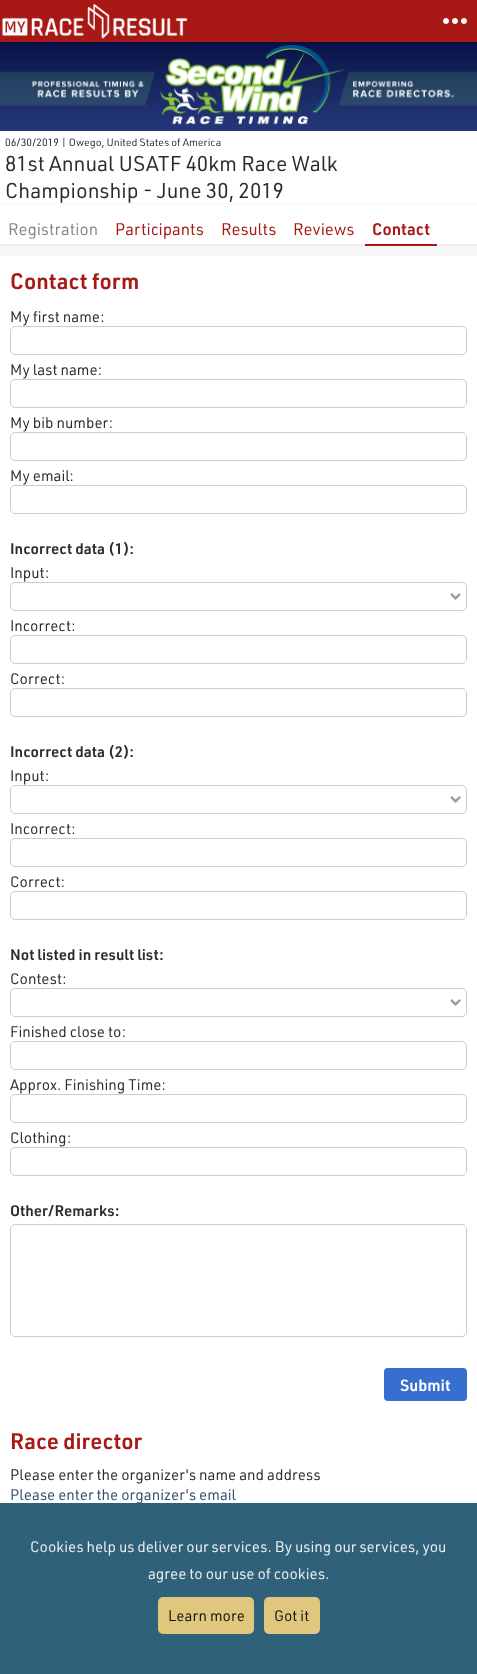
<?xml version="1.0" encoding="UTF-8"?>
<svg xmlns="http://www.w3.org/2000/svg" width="477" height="1674">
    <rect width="100%" height="100%" fill="#F7F7F7"/>
    <rect x="0" y="0" width="477" height="42" fill="#A81815"/>
    <image x="2" y="4" width="186" height="35" href="img_01.png"/>
    <image x="443" y="18" width="24" height="6" href="img_02.png"/>
    <image x="0" y="42" width="477" height="89" href="img_03.png"/>
    <rect x="0" y="131" width="477" height="72" fill="#FFFFFF"/>
    <text x="5" y="146" font-family="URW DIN" font-size="10.5" fill="#2C2C2C">06/30/2019 | Owego, United States of America</text>
    <text font-family="URW DIN" font-size="21" fill="#2C2C2C">
        <tspan x="5" y="171">81st Annual USATF 40km Race Walk</tspan>
        <tspan x="5" y="198">Championship - June 30, 2019</tspan>
    </text>
    <rect x="0" y="204" width="477" height="40" fill="#FFFFFF"/>
    <rect x="0" y="244" width="477" height="2" fill="#EEEEEE"/>
    <text x="8" y="235" font-family="URW DIN" font-size="16.5" fill="#888888">Registration</text>
    <text x="115" y="235" font-family="URW DIN" font-size="16.5" fill="#A81815">Participants</text>
    <text x="221" y="235" font-family="URW DIN" font-size="16.5" fill="#A81815">Results</text>
    <text x="293" y="235" font-family="URW DIN" font-size="16.5" fill="#A81815">Reviews</text>
    <rect x="365" y="244" width="72" height="2" fill="#A81815"/>
    <text x="372" y="235" font-family="URW DIN" font-size="16.5" font-weight="600" fill="#A81815">Contact</text>
    <rect x="0" y="256" width="477" height="1278" fill="#FFFFFF"/>
    <text x="10" y="289" font-family="URW DIN" font-size="22" font-weight="600" fill="#A81815">Contact form</text>
    <text x="10" y="322" font-family="URW DIN" font-size="15" fill="#2C2C2C">My first name:</text>
    <rect x="10.5" y="326.5" width="456" height="28" rx="4.5" fill="none" stroke="#CCCCCC"/>
    <text x="10" y="375" font-family="URW DIN" font-size="15" fill="#2C2C2C">My last name:</text>
    <rect x="10.5" y="379.5" width="456" height="28" rx="4.5" fill="none" stroke="#CCCCCC"/>
    <text x="10" y="428" font-family="URW DIN" font-size="15" fill="#2C2C2C">My bib number:</text>
    <rect x="10.5" y="432.5" width="456" height="28" rx="4.5" fill="none" stroke="#CCCCCC"/>
    <text x="10" y="481" font-family="URW DIN" font-size="15" fill="#2C2C2C">My email:</text>
    <rect x="10.5" y="485.5" width="456" height="28" rx="4.5" fill="none" stroke="#CCCCCC"/>
    <text x="10" y="554" font-family="URW DIN" font-size="15" font-weight="600" fill="#2C2C2C">Incorrect data (1):</text>
    <text x="10" y="578" font-family="URW DIN" font-size="15" fill="#2C2C2C">Input:</text>
    <image x="450" y="593" width="11" height="7" href="img_04.png"/>
    <rect x="10.5" y="582.5" width="456" height="28" rx="4.5" fill="none" stroke="#CCCCCC"/>
    <text x="10" y="631" font-family="URW DIN" font-size="15" fill="#2C2C2C">Incorrect:</text>
    <rect x="10.5" y="635.5" width="456" height="28" rx="4.5" fill="none" stroke="#CCCCCC"/>
    <text x="10" y="684" font-family="URW DIN" font-size="15" fill="#2C2C2C">Correct:</text>
    <rect x="10.5" y="688.5" width="456" height="28" rx="4.5" fill="none" stroke="#CCCCCC"/>
    <text x="10" y="757" font-family="URW DIN" font-size="15" font-weight="600" fill="#2C2C2C">Incorrect data (2):</text>
    <text x="10" y="781" font-family="URW DIN" font-size="15" fill="#2C2C2C">Input:</text>
    <image x="450" y="796" width="11" height="7" href="img_04.png"/>
    <rect x="10.5" y="785.5" width="456" height="28" rx="4.5" fill="none" stroke="#CCCCCC"/>
    <text x="10" y="834" font-family="URW DIN" font-size="15" fill="#2C2C2C">Incorrect:</text>
    <rect x="10.5" y="838.5" width="456" height="28" rx="4.5" fill="none" stroke="#CCCCCC"/>
    <text x="10" y="887" font-family="URW DIN" font-size="15" fill="#2C2C2C">Correct:</text>
    <rect x="10.5" y="891.5" width="456" height="28" rx="4.5" fill="none" stroke="#CCCCCC"/>
    <text x="10" y="960" font-family="URW DIN" font-size="15" font-weight="600" fill="#2C2C2C">Not listed in result list:</text>
    <text x="10" y="984" font-family="URW DIN" font-size="15" fill="#2C2C2C">Contest:</text>
    <image x="450" y="999" width="11" height="7" href="img_04.png"/>
    <rect x="10.5" y="988.5" width="456" height="28" rx="4.5" fill="none" stroke="#CCCCCC"/>
    <text x="10" y="1037" font-family="URW DIN" font-size="15" fill="#2C2C2C">Finished close to:</text>
    <rect x="10.5" y="1041.5" width="456" height="28" rx="4.5" fill="none" stroke="#CCCCCC"/>
    <text x="10" y="1090" font-family="URW DIN" font-size="15" fill="#2C2C2C">Approx. Finishing Time:</text>
    <rect x="10.5" y="1094.5" width="456" height="28" rx="4.5" fill="none" stroke="#CCCCCC"/>
    <text x="10" y="1143" font-family="URW DIN" font-size="15" fill="#2C2C2C">Clothing:</text>
    <rect x="10.5" y="1147.5" width="456" height="28" rx="4.5" fill="none" stroke="#CCCCCC"/>
    <text x="10" y="1216" font-family="URW DIN" font-size="15" font-weight="600" fill="#2C2C2C">Other/Remarks:</text>
    <rect x="10.5" y="1224.5" width="456" height="112" rx="4.5" fill="none" stroke="#CCCCCC"/>
    <rect x="384" y="1368" width="83" height="33" rx="4" fill="#376FD0"/>
    <text x="400" y="1391" font-family="URW DIN" font-size="16" font-weight="600" fill="#FFFFFF">Submit</text>
    <text x="10" y="1449" font-family="URW DIN" font-size="22" font-weight="600" fill="#A81815">Race director</text>
    <text x="10" y="1480" font-family="URW DIN" font-size="15" fill="#2C2C2C">Please enter the organizer's name and address</text>
    <text x="10" y="1500" font-family="URW DIN" font-size="15" fill="#354F6C">Please enter the organizer's email</text>
    <rect x="0" y="1503" width="477" height="171" fill="#1D546F" fill-opacity="0.92"/>
    <text x="30" y="1552" font-family="URW DIN" font-size="15" fill="#EFEFEF">Cookies help us deliver our services. By using our services, you</text>
    <text x="148" y="1579" font-family="URW DIN" font-size="15" fill="#EFEFEF">agree to our use of cookies.</text>
    <rect x="158" y="1597" width="96" height="37" rx="5" fill="#DFC77E"/>
    <text x="168" y="1621" font-family="URW DIN" font-size="15" fill="#141414">Learn more</text>
    <rect x="264" y="1597" width="56" height="37" rx="5" fill="#DFC77E"/>
    <text x="274" y="1621" font-family="URW DIN" font-size="15" fill="#141414">Got it</text>
</svg>
